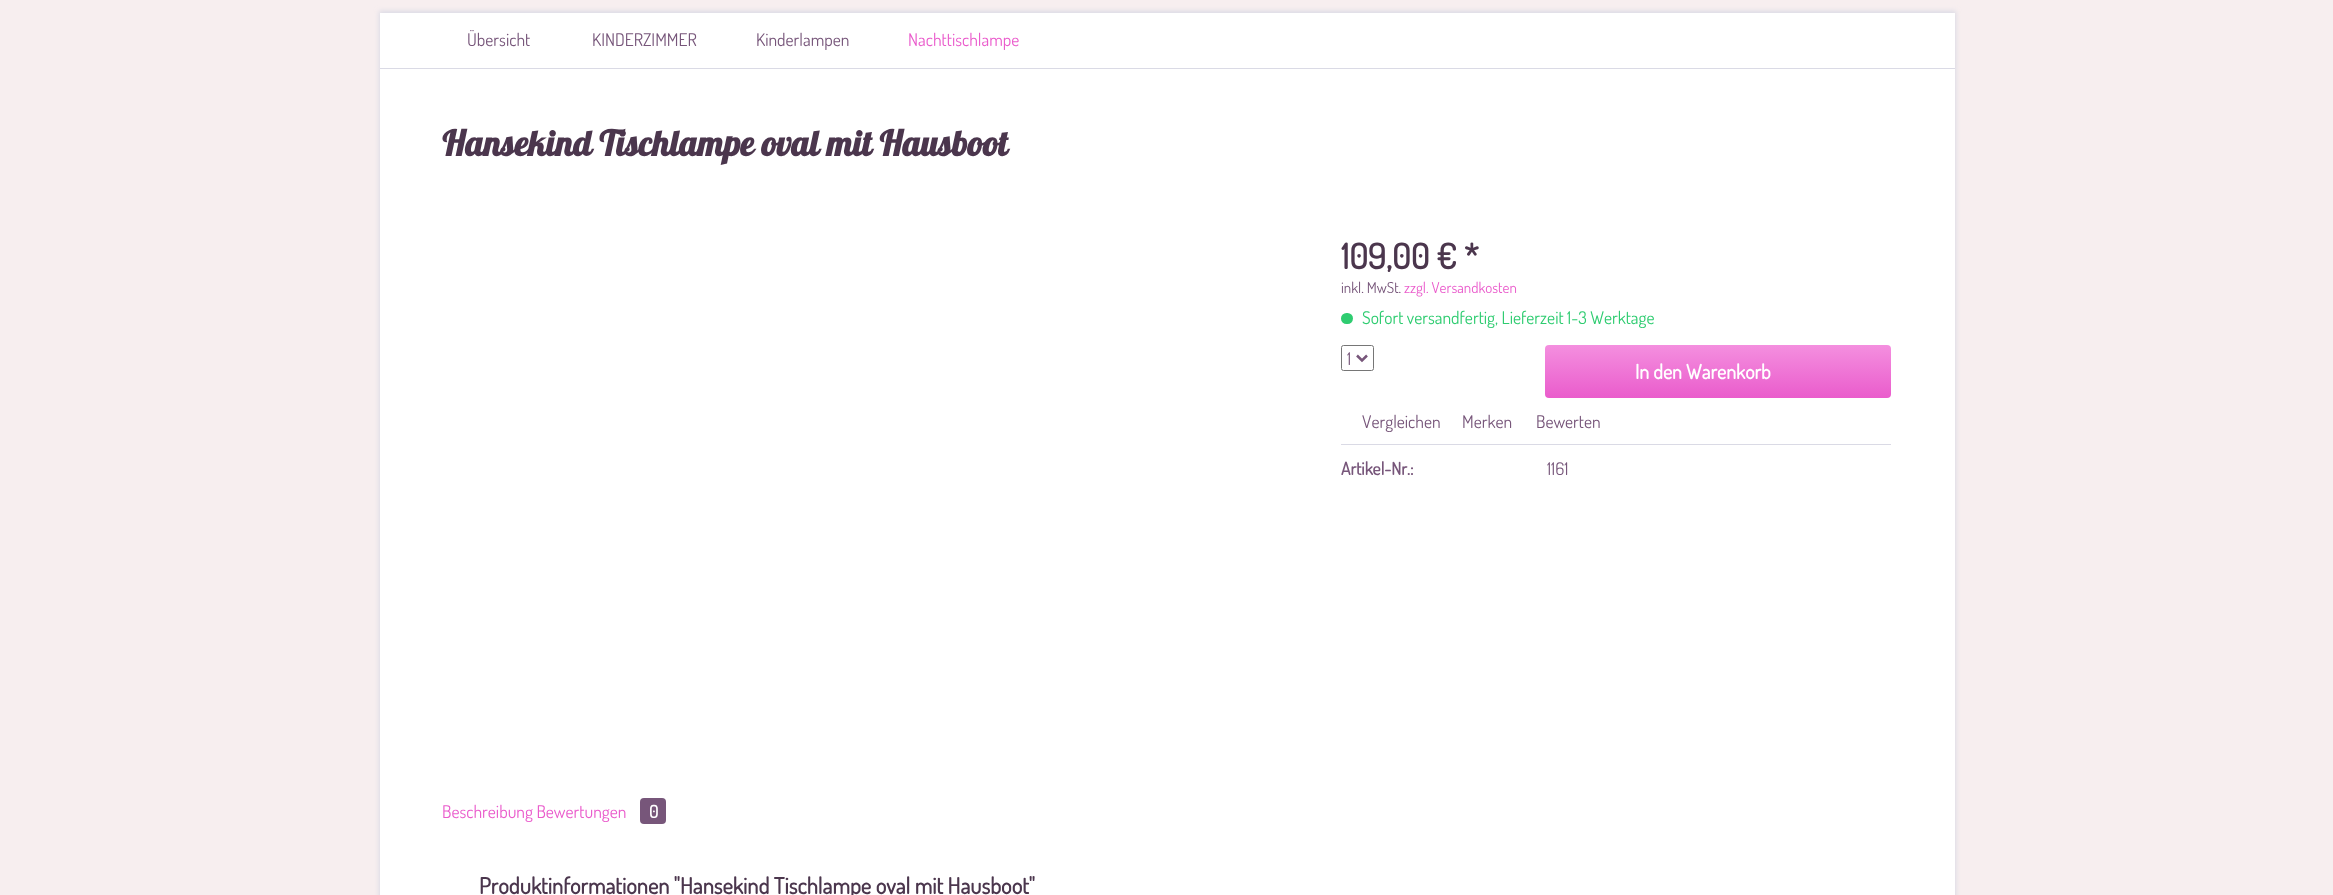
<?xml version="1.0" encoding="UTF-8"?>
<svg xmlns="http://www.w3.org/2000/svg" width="2333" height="895">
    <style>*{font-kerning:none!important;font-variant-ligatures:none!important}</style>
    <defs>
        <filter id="blur1" x="-50%" y="-200%" width="200%" height="500%"><feGaussianBlur stdDeviation="2.5"/></filter>
        <linearGradient id="g1" gradientUnits="userSpaceOnUse" x1="1718" y1="345" x2="1718" y2="398"><stop offset="0" stop-color="#F48FDF"/><stop offset="1" stop-color="#EA5CCC"/></linearGradient>
    </defs>
    <rect width="100%" height="100%" fill="#F7EEEF"/>
    <rect x="379" y="11" width="1577" height="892" fill="#DADAE5" filter="url(#blur1)"/>
    <rect x="380" y="13" width="1575" height="882" fill="#FFFFFF"/>
    <rect x="380" y="68" width="1575" height="1" fill="#DADAE5"/>
    <text x="467" y="46" font-family="Dosis" font-size="17.5" fill="#77567A">Übersicht</text>
    <text x="592" y="46" font-family="Dosis" font-size="17.5" fill="#77567A">KINDERZIMMER</text>
    <text x="756" y="46" font-family="Dosis" font-size="17.5" fill="#77567A">Kinderlampen</text>
    <text x="908" y="46" font-family="Dosis" font-size="17.5" fill="#EA5CCC">Nachttischlampe</text>
    <text x="442" y="156" font-family="Lobster" font-size="35" font-weight="700" fill="#4B364D">Hansekind Tischlampe oval mit Hausboot</text>
    <text x="1341" y="269" font-family="Dosis" font-size="35" font-weight="700" fill="#4B364D">109,00 € *</text>
    <text x="1341" y="293" font-family="Dosis" font-size="15" fill="#77567A">inkl. MwSt.</text>
    <text x="1404" y="293" font-family="Dosis" font-size="15" fill="#EA5CCC">zzgl. Versandkosten</text>
    <rect x="1341" y="313" width="12" height="11" rx="5.5" fill="#2ECC70"/>
    <text x="1362" y="324" font-family="Dosis" font-size="17.5" fill="#2ECC70">Sofort versandfertig, Lieferzeit 1-3 Werktage</text>
    <rect x="1341.5" y="345.5" width="32" height="25" rx="2" fill="none" stroke="#767676"/>
    <path d="M 1357 355.5 L 1362 360.5 L 1367 355.5" fill="none" stroke="#77567A" stroke-width="2.5"/>
    <text x="1347" y="365" font-family="Dosis" font-size="17.5" fill="#77567A">1</text>
    <rect x="1545" y="345" width="346" height="53" rx="4" fill="url(#g1)"/>
    <text x="1635" y="379" font-family="Dosis" font-size="20" font-weight="700" fill="#FFFFFF">In den Warenkorb</text>
    <rect x="1341" y="444" width="550" height="1" fill="#DADAE5"/>
    <text x="1362" y="428" font-family="Dosis" font-size="17.5" fill="#77567A">Vergleichen</text>
    <text x="1462" y="428" font-family="Dosis" font-size="17.5" fill="#77567A">Merken</text>
    <text x="1536" y="428" font-family="Dosis" font-size="17.5" fill="#77567A">Bewerten</text>
    <text x="1341" y="475" font-family="Dosis" font-size="17.5" font-weight="700" fill="#77567A">Artikel-Nr.:</text>
    <text x="1547" y="475" font-family="Dosis" font-size="17.5" fill="#77567A">1161</text>
    <text x="442" y="818" font-family="Dosis" font-size="17.5" fill="#EA5CCC">Beschreibung Bewertungen</text>
    <rect x="640" y="798" width="26" height="26" rx="4" fill="#77567A"/>
    <text x="649" y="818" font-family="Dosis" font-size="17.5" font-weight="700" fill="#FFFFFF">0</text>
    <text x="479" y="894" font-family="Dosis" font-size="22.5" font-weight="700" fill="#4B364D">Produktinformationen "Hansekind Tischlampe oval mit Hausboot"</text>
</svg>
